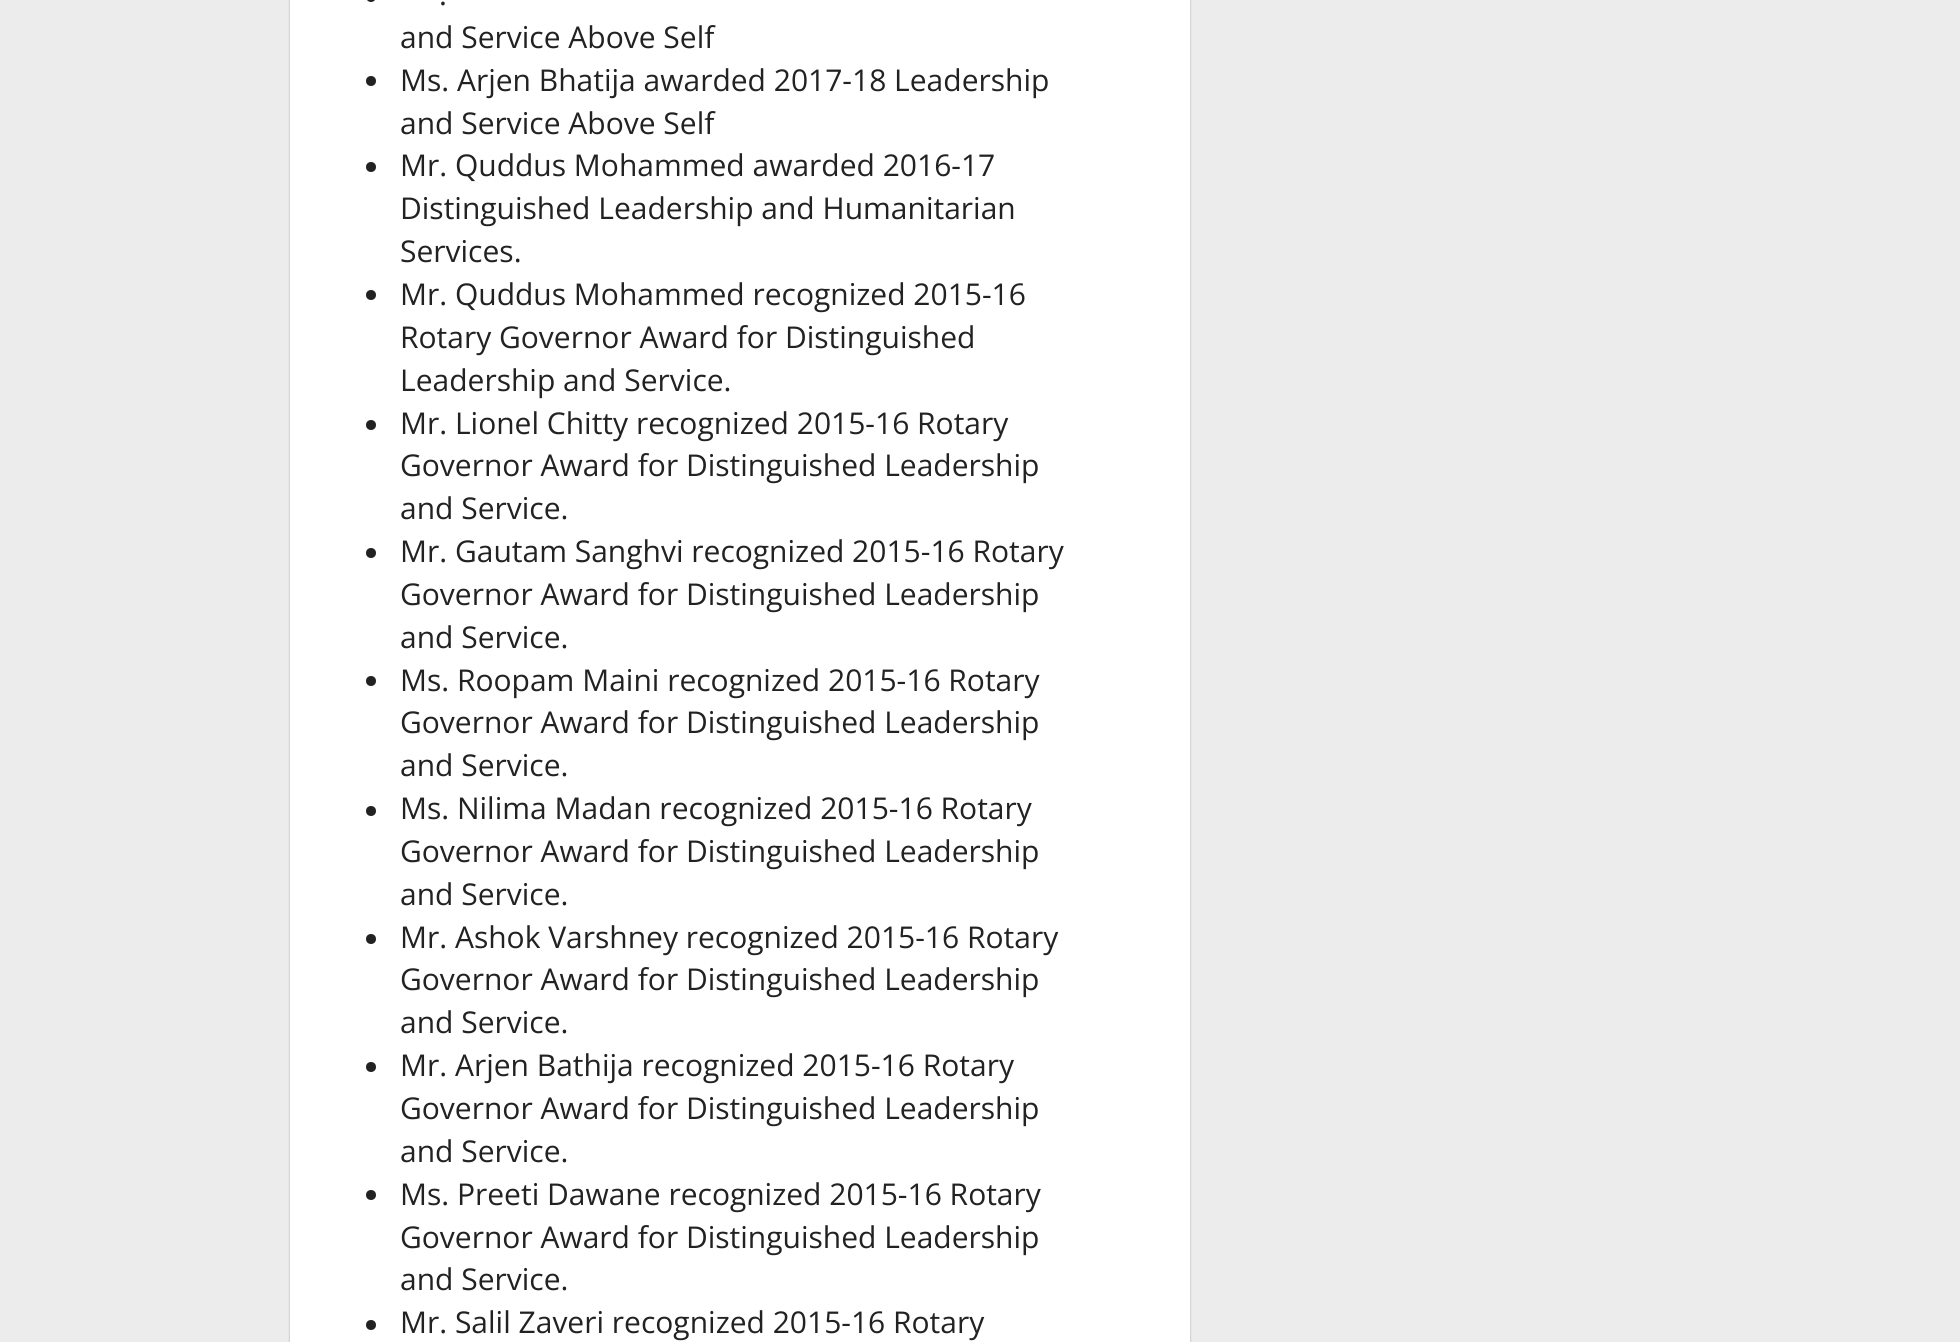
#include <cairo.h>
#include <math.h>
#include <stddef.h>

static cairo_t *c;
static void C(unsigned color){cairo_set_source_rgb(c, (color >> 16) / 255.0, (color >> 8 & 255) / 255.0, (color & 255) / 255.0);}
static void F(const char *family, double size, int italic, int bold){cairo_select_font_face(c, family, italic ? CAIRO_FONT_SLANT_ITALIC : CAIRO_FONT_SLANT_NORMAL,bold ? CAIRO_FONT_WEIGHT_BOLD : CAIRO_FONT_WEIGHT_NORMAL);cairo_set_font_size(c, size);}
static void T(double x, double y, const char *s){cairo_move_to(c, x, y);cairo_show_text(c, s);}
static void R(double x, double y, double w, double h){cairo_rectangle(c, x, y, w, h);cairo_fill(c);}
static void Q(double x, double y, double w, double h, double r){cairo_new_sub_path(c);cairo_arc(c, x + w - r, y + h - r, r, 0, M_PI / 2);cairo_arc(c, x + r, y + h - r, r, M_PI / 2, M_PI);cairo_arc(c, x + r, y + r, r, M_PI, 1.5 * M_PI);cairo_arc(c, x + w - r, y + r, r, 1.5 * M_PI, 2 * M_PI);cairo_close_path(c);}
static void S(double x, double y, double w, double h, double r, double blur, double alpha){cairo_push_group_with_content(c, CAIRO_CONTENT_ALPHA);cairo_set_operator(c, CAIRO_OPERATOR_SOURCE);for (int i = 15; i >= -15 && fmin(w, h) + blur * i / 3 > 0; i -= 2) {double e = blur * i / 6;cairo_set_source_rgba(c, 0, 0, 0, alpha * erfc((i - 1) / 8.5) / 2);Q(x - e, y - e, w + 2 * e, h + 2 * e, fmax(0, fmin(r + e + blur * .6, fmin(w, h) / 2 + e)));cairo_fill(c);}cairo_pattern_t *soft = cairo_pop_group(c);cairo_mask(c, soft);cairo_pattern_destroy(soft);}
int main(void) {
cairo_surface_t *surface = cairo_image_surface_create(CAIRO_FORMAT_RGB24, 1960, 1342);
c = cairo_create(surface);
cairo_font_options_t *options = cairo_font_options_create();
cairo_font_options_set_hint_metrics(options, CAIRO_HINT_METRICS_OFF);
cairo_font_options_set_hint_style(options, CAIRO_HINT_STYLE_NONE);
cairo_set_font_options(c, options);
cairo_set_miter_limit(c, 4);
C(0xececec);
cairo_paint(c);
C(0x000000);
S(290,-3,900,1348,0,1,.15);
C(0xffffff);
R(290,0,900,1342);
cairo_save(c);
cairo_set_fill_rule(c,CAIRO_FILL_RULE_EVEN_ODD);
cairo_new_path(c);
cairo_move_to(c,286,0);
cairo_line_to(c,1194,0);
cairo_line_to(c,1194,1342);
cairo_line_to(c,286,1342);
cairo_close_path(c);
cairo_move_to(c,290,-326);
cairo_line_to(c,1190,-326);
cairo_line_to(c,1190,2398);
cairo_line_to(c,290,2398);
cairo_close_path(c);
cairo_clip(c);
C(0x000000);
S(290,-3,900,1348,0,1,.15);
cairo_restore(c);
C(0x222222);
Q(366,-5,10,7,5);
cairo_fill(c);
F("Open Sans",30,0,0);
T(439,5,".");
T(400,48,"and Service Above Self");
cairo_new_path(c);
cairo_arc(c,371,81,5,0,2 * M_PI);
cairo_fill(c);
T(400,91,"Ms. Arjen Bhatija awarded 2017-18 Leadership");
T(400,134,"and Service Above Self");
cairo_new_path(c);
cairo_arc(c,371,167,5,0,2 * M_PI);
cairo_fill(c);
T(400,176,"Mr. Quddus Mohammed awarded 2016-17");
T(400,219,"Distinguished Leadership and Humanitarian");
T(400,262,"Services.");
cairo_new_path(c);
cairo_arc(c,371,295,5,0,2 * M_PI);
cairo_fill(c);
T(400,305,"Mr. Quddus Mohammed recognized 2015-16");
T(400,348,"Rotary Governor Award for Distinguished");
T(400,391,"Leadership and Service.");
cairo_new_path(c);
cairo_arc(c,371,425,5,0,2 * M_PI);
cairo_fill(c);
T(400,434,"Mr. Lionel Chitty recognized 2015-16 Rotary");
T(400,476,"Governor Award for Distinguished Leadership");
T(400,519,"and Service.");
cairo_new_path(c);
cairo_arc(c,371,553,5,0,2 * M_PI);
cairo_fill(c);
T(400,562,"Mr. Gautam Sanghvi recognized 2015-16 Rotary");
T(400,605,"Governor Award for Distinguished Leadership");
T(400,648,"and Service.");
cairo_new_path(c);
cairo_arc(c,371,681,5,0,2 * M_PI);
cairo_fill(c);
T(400,691,"Ms. Roopam Maini recognized 2015-16 Rotary");
T(400,733,"Governor Award for Distinguished Leadership");
T(400,776,"and Service.");
cairo_new_path(c);
cairo_arc(c,371,811,5,0,2 * M_PI);
cairo_fill(c);
T(400,819,"Ms. Nilima Madan recognized 2015-16 Rotary");
T(400,862,"Governor Award for Distinguished Leadership");
T(400,905,"and Service.");
cairo_new_path(c);
cairo_arc(c,371,939,5,0,2 * M_PI);
cairo_fill(c);
T(400,948,"Mr. Ashok Varshney recognized 2015-16 Rotary");
T(400,990,"Governor Award for Distinguished Leadership");
T(400,1033,"and Service.");
cairo_new_path(c);
cairo_arc(c,371,1067,5,0,2 * M_PI);
cairo_fill(c);
T(400,1076,"Mr. Arjen Bathija recognized 2015-16 Rotary");
T(400,1119,"Governor Award for Distinguished Leadership");
T(400,1162,"and Service.");
cairo_new_path(c);
cairo_arc(c,371,1195,5,0,2 * M_PI);
cairo_fill(c);
T(400,1205,"Ms. Preeti Dawane recognized 2015-16 Rotary");
T(400,1248,"Governor Award for Distinguished Leadership");
T(400,1290,"and Service.");
cairo_new_path(c);
cairo_arc(c,371,1325,5,0,2 * M_PI);
cairo_fill(c);
T(400,1333,"Mr. Salil Zaveri recognized 2015-16 Rotary");
cairo_surface_write_to_png(surface, "o.png");
cairo_font_options_destroy(options);
cairo_destroy(c);
cairo_surface_destroy(surface);
return 0;
}
